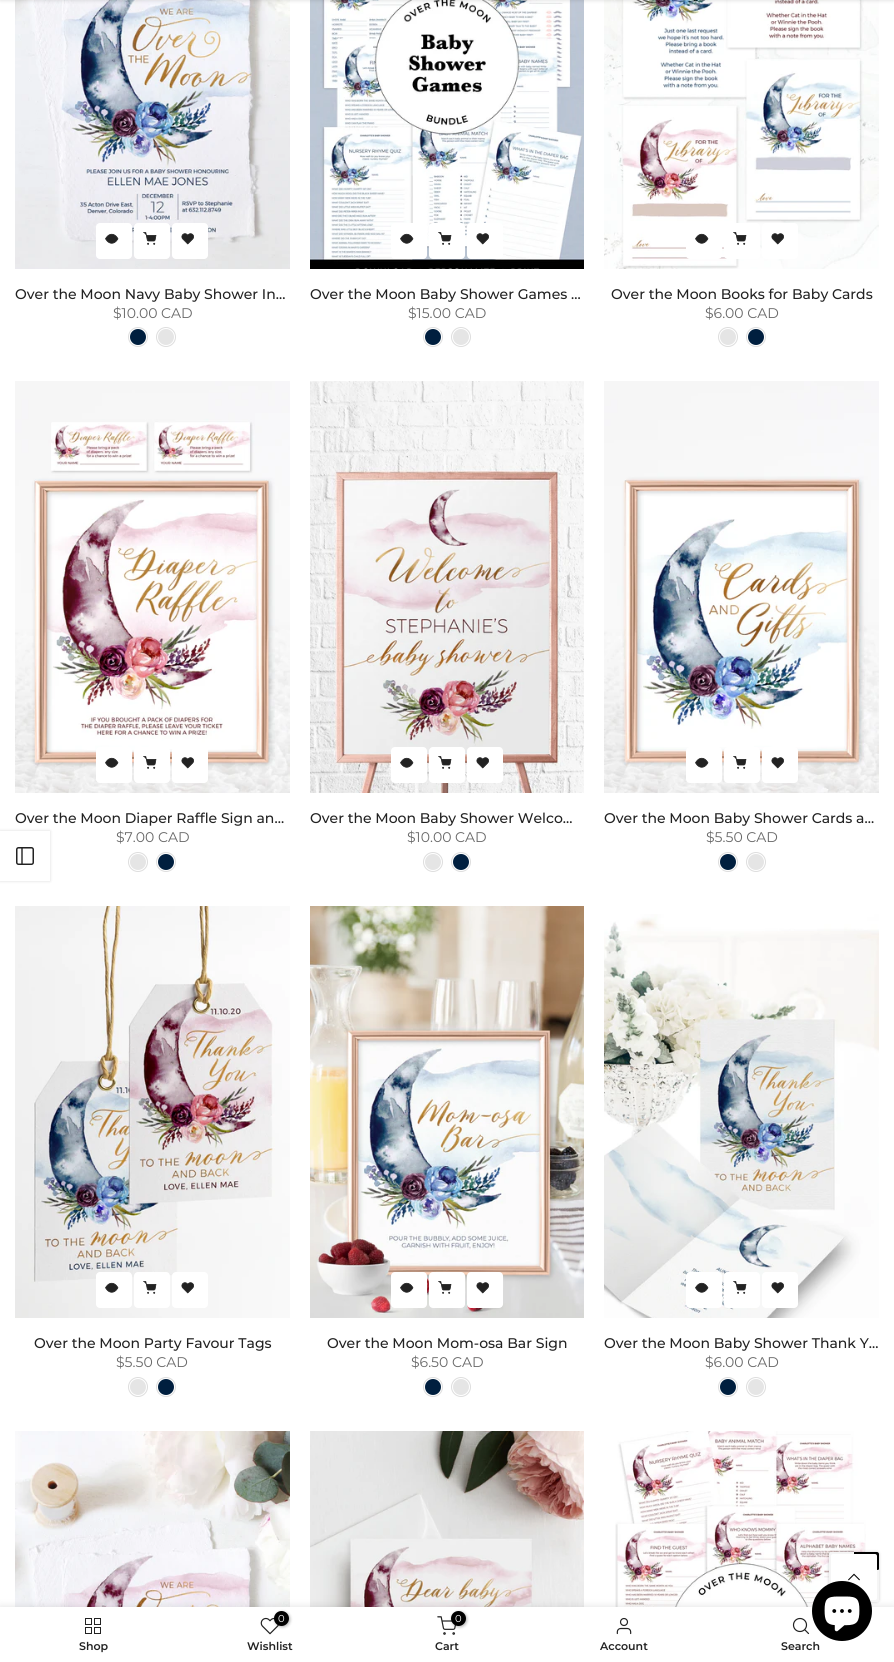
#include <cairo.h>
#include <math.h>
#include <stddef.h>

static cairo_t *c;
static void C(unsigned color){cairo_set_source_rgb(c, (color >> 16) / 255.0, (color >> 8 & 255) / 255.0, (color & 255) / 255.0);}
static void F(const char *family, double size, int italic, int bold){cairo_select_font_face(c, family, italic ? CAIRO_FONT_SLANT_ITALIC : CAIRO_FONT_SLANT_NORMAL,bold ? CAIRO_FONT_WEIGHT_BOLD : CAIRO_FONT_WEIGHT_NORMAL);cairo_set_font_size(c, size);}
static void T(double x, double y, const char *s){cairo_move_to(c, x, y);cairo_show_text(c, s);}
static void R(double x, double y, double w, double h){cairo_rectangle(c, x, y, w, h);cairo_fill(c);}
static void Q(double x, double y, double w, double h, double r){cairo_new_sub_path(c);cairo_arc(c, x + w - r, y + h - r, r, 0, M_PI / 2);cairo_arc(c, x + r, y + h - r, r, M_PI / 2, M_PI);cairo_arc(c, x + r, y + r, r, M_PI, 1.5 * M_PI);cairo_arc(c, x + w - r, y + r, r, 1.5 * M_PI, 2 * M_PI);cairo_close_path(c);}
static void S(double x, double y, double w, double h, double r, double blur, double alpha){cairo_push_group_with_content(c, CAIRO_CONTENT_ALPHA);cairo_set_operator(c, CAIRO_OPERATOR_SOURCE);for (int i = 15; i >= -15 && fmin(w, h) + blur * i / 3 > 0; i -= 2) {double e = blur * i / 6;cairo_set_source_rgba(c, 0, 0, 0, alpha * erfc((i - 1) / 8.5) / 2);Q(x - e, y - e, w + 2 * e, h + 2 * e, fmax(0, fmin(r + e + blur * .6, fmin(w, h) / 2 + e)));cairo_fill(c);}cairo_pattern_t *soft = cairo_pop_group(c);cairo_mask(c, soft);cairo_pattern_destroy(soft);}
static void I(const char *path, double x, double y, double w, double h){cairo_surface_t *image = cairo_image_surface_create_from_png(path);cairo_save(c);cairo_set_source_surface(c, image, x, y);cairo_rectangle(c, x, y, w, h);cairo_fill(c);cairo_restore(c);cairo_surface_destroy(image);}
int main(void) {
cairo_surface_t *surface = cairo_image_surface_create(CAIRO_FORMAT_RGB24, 894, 1662);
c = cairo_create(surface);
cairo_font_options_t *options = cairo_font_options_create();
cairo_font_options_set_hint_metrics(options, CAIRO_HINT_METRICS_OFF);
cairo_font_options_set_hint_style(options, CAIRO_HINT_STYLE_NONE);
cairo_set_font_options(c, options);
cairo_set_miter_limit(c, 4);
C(0xffffff);
cairo_paint(c);
I("1.png",15,0,275,269);
I("5.png",310,0,274,269);
I("6.png",604,0,275,269);
C(0x000000);
S(0,-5,894,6,0,1.5,.1);
C(0xffffff);
Q(96,223,36,36,4);
cairo_fill(c);
I("2.png",105,233,14,11);
Q(134,223,36,36,4);
cairo_fill(c);
I("3.png",143,232,14,13);
Q(172,223,36,36,4);
cairo_fill(c);
I("4.png",181,233,13,12);
F("Montserrat Medium",14,0,0);
C(0x222222);
T(15,299,"Over the Moon Navy Baby Shower In…");
F("Montserrat",14,0,0);
C(0x696969);
T(113,318,"$10.00 CAD");
cairo_new_path(c);
cairo_arc(c,138,337,9.5,0,2 * M_PI);
C(0xdddddd);
cairo_set_line_width(c,1);
cairo_stroke(c);
C(0x001f3f);
cairo_arc(c,138,337,8,0,2 * M_PI);
cairo_fill(c);
cairo_arc(c,166,337,9.5,0,2 * M_PI);
C(0xdddddd);
cairo_stroke(c);
C(0xe5e5e5);
cairo_arc(c,166,337,8,0,2 * M_PI);
cairo_fill(c);
C(0xffffff);
Q(391,223,36,36,4);
cairo_fill(c);
I("2.png",400,233,14,11);
Q(429,223,36,36,4);
cairo_fill(c);
I("3.png",438,232,14,13);
Q(467,223,36,36,4);
cairo_fill(c);
I("4.png",476,233,13,12);
F("Montserrat Medium",14,0,0);
C(0x222222);
T(310,299,"Over the Moon Baby Shower Games …");
F("Montserrat",14,0,0);
C(0x696969);
T(408,318,"$15.00 CAD");
cairo_new_path(c);
cairo_arc(c,433,337,9.5,0,2 * M_PI);
C(0xdddddd);
cairo_stroke(c);
C(0x001f3f);
cairo_arc(c,433,337,8,0,2 * M_PI);
cairo_fill(c);
cairo_arc(c,461,337,9.5,0,2 * M_PI);
C(0xdddddd);
cairo_stroke(c);
C(0xe5e5e5);
cairo_arc(c,461,337,8,0,2 * M_PI);
cairo_fill(c);
C(0xffffff);
Q(686,223,36,36,4);
cairo_fill(c);
I("2.png",695,233,14,11);
Q(724,223,36,36,4);
cairo_fill(c);
I("3.png",733,232,14,13);
Q(762,223,36,36,4);
cairo_fill(c);
I("4.png",771,233,13,12);
F("Montserrat Medium",14,0,0);
C(0x222222);
T(611,299,"Over the Moon Books for Baby Cards");
F("Montserrat",14,0,0);
C(0x696969);
T(705,318,"$6.00 CAD");
cairo_new_path(c);
cairo_arc(c,728,337,9.5,0,2 * M_PI);
C(0xdddddd);
cairo_stroke(c);
C(0xe5e5e5);
cairo_arc(c,728,337,8,0,2 * M_PI);
cairo_fill(c);
cairo_arc(c,756,337,9.5,0,2 * M_PI);
C(0xdddddd);
cairo_stroke(c);
C(0x001f3f);
cairo_arc(c,756,337,8,0,2 * M_PI);
cairo_fill(c);
I("7.png",15,381,275,412);
C(0xffffff);
Q(96,747,36,36,4);
cairo_fill(c);
I("2.png",105,757,14,11);
Q(134,747,36,36,4);
cairo_fill(c);
I("3.png",143,756,14,13);
Q(172,747,36,36,4);
cairo_fill(c);
I("4.png",181,757,13,12);
F("Montserrat Medium",14,0,0);
C(0x222222);
T(15,823,"Over the Moon Diaper Raffle Sign an…");
F("Montserrat",14,0,0);
C(0x696969);
T(116,842,"$7.00 CAD");
cairo_new_path(c);
cairo_arc(c,138,862,9.5,0,2 * M_PI);
C(0xdddddd);
cairo_stroke(c);
C(0xe5e5e5);
cairo_arc(c,138,862,8,0,2 * M_PI);
cairo_fill(c);
cairo_arc(c,166,862,9.5,0,2 * M_PI);
C(0xdddddd);
cairo_stroke(c);
C(0x001f3f);
cairo_arc(c,166,862,8,0,2 * M_PI);
cairo_fill(c);
I("8.png",310,381,274,412);
C(0xffffff);
Q(391,747,36,36,4);
cairo_fill(c);
I("2.png",400,757,14,11);
Q(429,747,36,36,4);
cairo_fill(c);
I("3.png",438,756,14,13);
Q(467,747,36,36,4);
cairo_fill(c);
I("4.png",476,757,13,12);
F("Montserrat Medium",14,0,0);
C(0x222222);
T(310,823,"Over the Moon Baby Shower Welco…");
F("Montserrat",14,0,0);
C(0x696969);
T(407,842,"$10.00 CAD");
cairo_new_path(c);
cairo_arc(c,433,862,9.5,0,2 * M_PI);
C(0xdddddd);
cairo_stroke(c);
C(0xe5e5e5);
cairo_arc(c,433,862,8,0,2 * M_PI);
cairo_fill(c);
cairo_arc(c,461,862,9.5,0,2 * M_PI);
C(0xdddddd);
cairo_stroke(c);
C(0x001f3f);
cairo_arc(c,461,862,8,0,2 * M_PI);
cairo_fill(c);
I("9.png",604,381,275,412);
C(0xffffff);
Q(686,747,36,36,4);
cairo_fill(c);
I("2.png",695,757,14,11);
Q(724,747,36,36,4);
cairo_fill(c);
I("3.png",733,756,14,13);
Q(762,747,36,36,4);
cairo_fill(c);
I("4.png",771,757,13,12);
F("Montserrat Medium",14,0,0);
C(0x222222);
T(604,823,"Over the Moon Baby Shower Cards a…");
F("Montserrat",14,0,0);
C(0x696969);
T(706,842,"$5.50 CAD");
cairo_new_path(c);
cairo_arc(c,728,862,9.5,0,2 * M_PI);
C(0xdddddd);
cairo_stroke(c);
C(0x001f3f);
cairo_arc(c,728,862,8,0,2 * M_PI);
cairo_fill(c);
cairo_arc(c,756,862,9.5,0,2 * M_PI);
C(0xdddddd);
cairo_stroke(c);
C(0xe5e5e5);
cairo_arc(c,756,862,8,0,2 * M_PI);
cairo_fill(c);
I("10.png",15,906,275,412);
C(0xffffff);
Q(96,1272,36,36,4);
cairo_fill(c);
I("2.png",105,1282,14,11);
Q(134,1272,36,36,4);
cairo_fill(c);
I("3.png",143,1281,14,13);
Q(172,1272,36,36,4);
cairo_fill(c);
I("4.png",181,1282,13,12);
F("Montserrat Medium",14,0,0);
C(0x222222);
T(34,1348,"Over the Moon Party Favour Tags");
F("Montserrat",14,0,0);
C(0x696969);
T(116,1367,"$5.50 CAD");
cairo_new_path(c);
cairo_arc(c,138,1387,9.5,0,2 * M_PI);
C(0xdddddd);
cairo_stroke(c);
C(0xe5e5e5);
cairo_arc(c,138,1387,8,0,2 * M_PI);
cairo_fill(c);
cairo_arc(c,166,1387,9.5,0,2 * M_PI);
C(0xdddddd);
cairo_stroke(c);
C(0x001f3f);
cairo_arc(c,166,1387,8,0,2 * M_PI);
cairo_fill(c);
I("11.png",310,906,274,412);
C(0xffffff);
Q(391,1272,36,36,4);
cairo_fill(c);
I("2.png",400,1282,14,11);
Q(429,1272,36,36,4);
cairo_fill(c);
I("3.png",438,1281,14,13);
Q(467,1272,36,36,4);
cairo_fill(c);
I("4.png",476,1282,13,12);
F("Montserrat Medium",14,0,0);
C(0x222222);
T(327,1348,"Over the Moon Mom-osa Bar Sign");
F("Montserrat",14,0,0);
C(0x696969);
T(411,1367,"$6.50 CAD");
cairo_new_path(c);
cairo_arc(c,433,1387,9.5,0,2 * M_PI);
C(0xdddddd);
cairo_stroke(c);
C(0x001f3f);
cairo_arc(c,433,1387,8,0,2 * M_PI);
cairo_fill(c);
cairo_arc(c,461,1387,9.5,0,2 * M_PI);
C(0xdddddd);
cairo_stroke(c);
C(0xe5e5e5);
cairo_arc(c,461,1387,8,0,2 * M_PI);
cairo_fill(c);
I("12.png",604,914,275,404);
C(0xffffff);
Q(686,1272,36,36,4);
cairo_fill(c);
I("2.png",695,1282,14,11);
Q(724,1272,36,36,4);
cairo_fill(c);
I("3.png",733,1281,14,13);
Q(762,1272,36,36,4);
cairo_fill(c);
I("4.png",771,1282,13,12);
F("Montserrat Medium",14,0,0);
C(0x222222);
T(604,1348,"Over the Moon Baby Shower Thank Y…");
F("Montserrat",14,0,0);
C(0x696969);
T(705,1367,"$6.00 CAD");
cairo_new_path(c);
cairo_arc(c,728,1387,9.5,0,2 * M_PI);
C(0xdddddd);
cairo_stroke(c);
C(0x001f3f);
cairo_arc(c,728,1387,8,0,2 * M_PI);
cairo_fill(c);
cairo_arc(c,756,1387,9.5,0,2 * M_PI);
C(0xdddddd);
cairo_stroke(c);
C(0xe5e5e5);
cairo_arc(c,756,1387,8,0,2 * M_PI);
cairo_fill(c);
I("13.png",15,1431,275,176);
I("14.png",310,1431,274,176);
I("15.png",615,1431,251,176);
cairo_save(c);
cairo_set_fill_rule(c,CAIRO_FILL_RULE_EVEN_ODD);
cairo_new_path(c);
cairo_move_to(c,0,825);
cairo_line_to(c,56,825);
cairo_line_to(c,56,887);
cairo_line_to(c,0,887);
cairo_close_path(c);
cairo_move_to(c,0,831);
cairo_line_to(c,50,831);
cairo_line_to(c,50,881);
cairo_line_to(c,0,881);
cairo_close_path(c);
cairo_clip(c);
C(0x000000);
S(0,831,50,50,0,1.5,.15);
cairo_restore(c);
Q(16.75,847.75,16.5,16.5,1.75);
C(0x222222);
cairo_set_line_width(c,1.5);
cairo_stroke(c);
cairo_new_path(c);
cairo_move_to(c,22,848);
cairo_line_to(c,22,864);
cairo_set_line_width(c,1.4);
cairo_set_line_cap(c,CAIRO_LINE_CAP_ROUND);
cairo_set_line_join(c,CAIRO_LINE_JOIN_ROUND);
cairo_stroke(c);
C(0x000000);
S(0,1607,894,55,0,4.5,.12);
C(0xffffff);
R(0,1607,894,55);
C(0x000000);
S(829,1552,50,50,3,1.5,.2);
C(0xffffff);
Q(829,1552,50,50,3);
cairo_fill(c);
C(0x000000);
cairo_new_path(c);
cairo_move_to(c,854,1577);
cairo_line_to(c,879,1569.5);
cairo_line_to(c,879,1554);
cairo_curve_to(c,879,1553,878,1552,877,1552);
cairo_line_to(c,854,1552);
cairo_close_path(c);
cairo_fill(c);
C(0xf5f5f5);
cairo_new_path(c);
cairo_move_to(c,854,1577);
cairo_line_to(c,854,1552);
cairo_line_to(c,831,1552);
cairo_curve_to(c,830,1552,829,1553,829,1554);
cairo_line_to(c,829,1600);
cairo_curve_to(c,829,1601,830,1602,831,1602);
cairo_line_to(c,877,1602);
cairo_curve_to(c,878,1602,879,1601,879,1600);
cairo_line_to(c,879,1570);
cairo_close_path(c);
cairo_fill(c);
C(0xffffff);
Q(831,1554,46,46,2);
cairo_fill(c);
I("16.png",848,1573,12,8);
I("17.png",85,1618,16,16);
F("Montserrat SemiBold",11,0,0);
C(0x222222);
T(79,1650,"Shop");
I("18.png",260,1617,19,18);
C(0x000000);
S(275,1612,15,15,7.5,1.5,.3);
C(0x000000);
cairo_arc(c,281.5,1618.5,7.5,0,2 * M_PI);
cairo_fill(c);
F("Montserrat",10,0,0);
C(0xffffff);
T(278,1622,"0");
F("Montserrat SemiBold",11,0,0);
C(0x222222);
T(247,1650,"Wishlist");
I("19.png",437,1616,19,19);
C(0x000000);
S(452,1612,15,15,7.5,1.5,.3);
C(0x000000);
cairo_arc(c,458.5,1618.5,7.5,0,2 * M_PI);
cairo_fill(c);
F("Montserrat",10,0,0);
C(0xffffff);
T(455,1622,"0");
F("Montserrat SemiBold",11,0,0);
C(0x222222);
T(435,1650,"Cart");
I("20.png",616,1617,16,18);
T(600,1650,"Account");
cairo_new_path(c);
cairo_arc(c,800,1625,6.5,0,2 * M_PI);
cairo_set_line_width(c,1.2);
cairo_set_line_cap(c,CAIRO_LINE_CAP_BUTT);
cairo_set_line_join(c,CAIRO_LINE_JOIN_MITER);
cairo_stroke(c);
cairo_new_path(c);
cairo_move_to(c,808.5,1633.5);
cairo_line_to(c,805,1630);
cairo_set_line_cap(c,CAIRO_LINE_CAP_ROUND);
cairo_set_line_join(c,CAIRO_LINE_JOIN_ROUND);
cairo_stroke(c);
T(781,1650,"Search");
C(0x000000);
cairo_new_path(c);
cairo_arc(c,842,1611,30,0,2 * M_PI);
cairo_fill(c);
I("21.png",824,1596,36,36);
cairo_surface_write_to_png(surface, "o.png");
cairo_font_options_destroy(options);
cairo_destroy(c);
cairo_surface_destroy(surface);
return 0;
}
